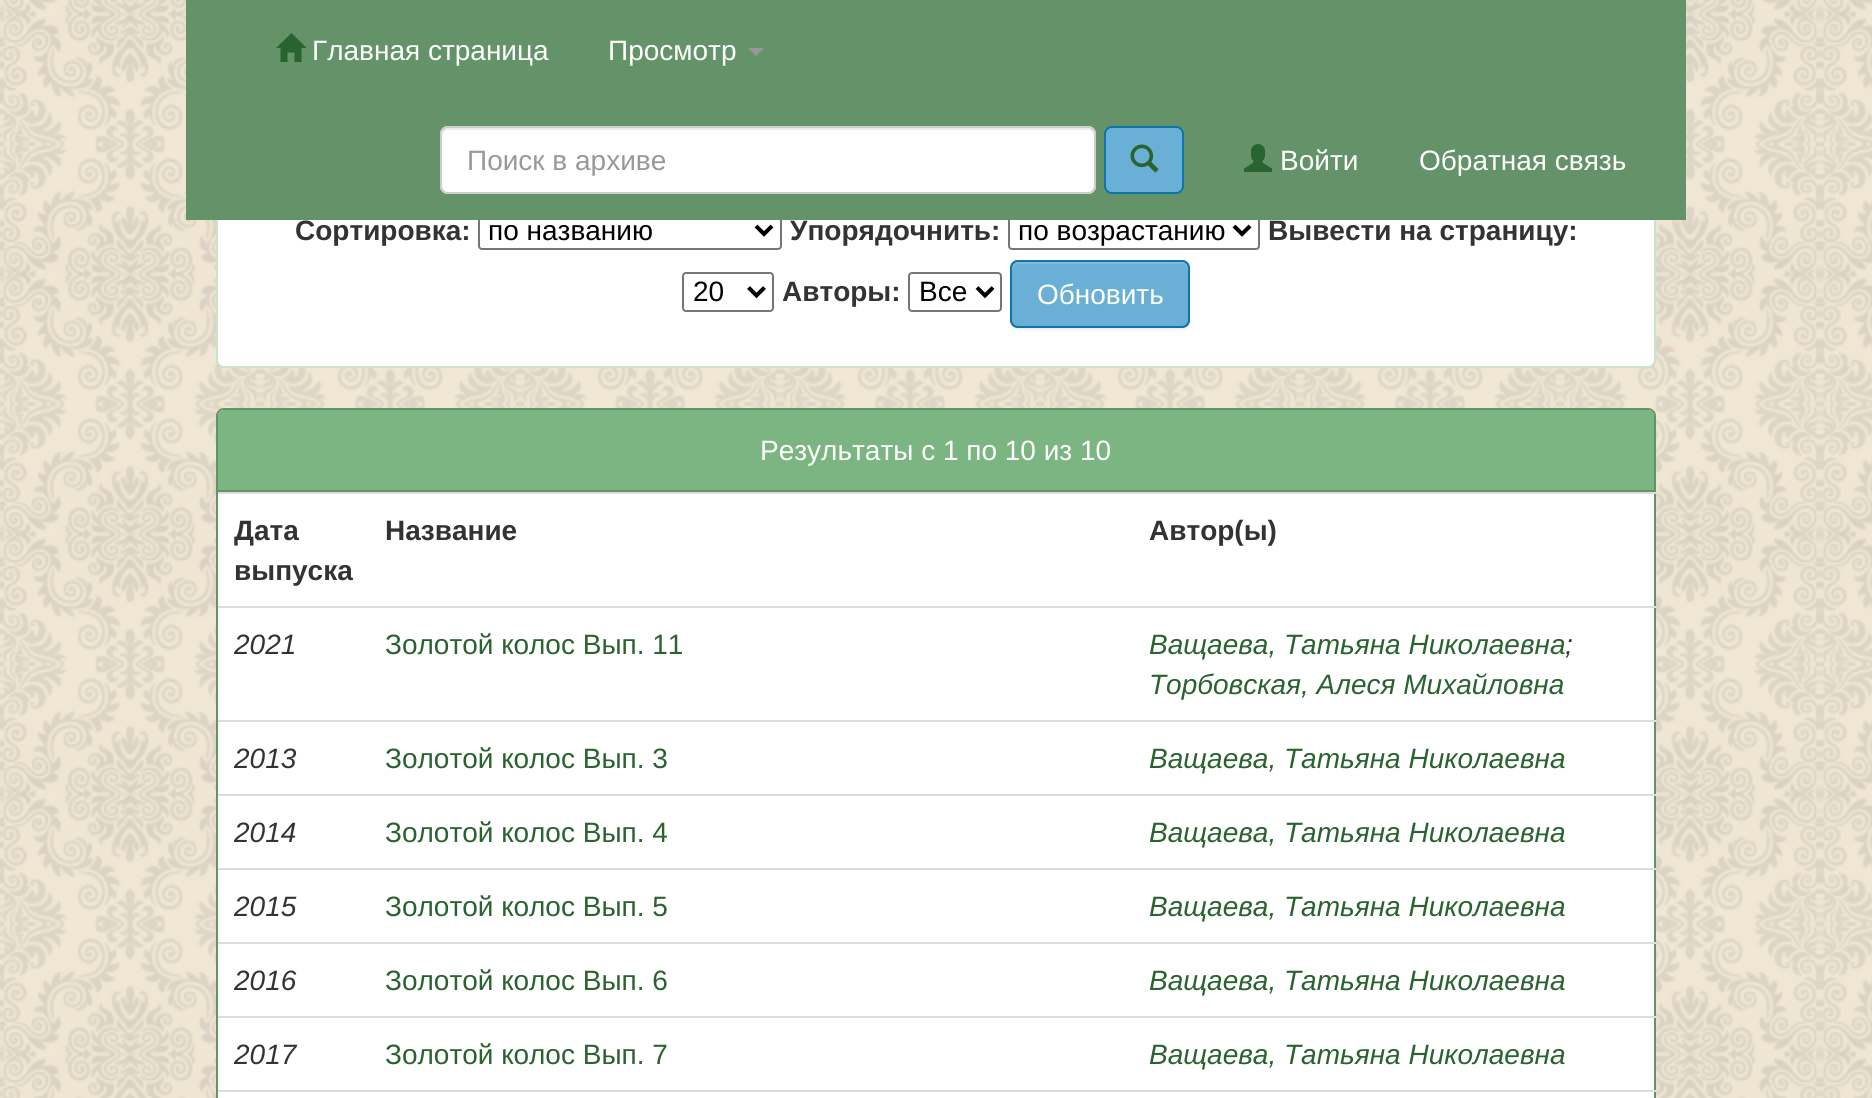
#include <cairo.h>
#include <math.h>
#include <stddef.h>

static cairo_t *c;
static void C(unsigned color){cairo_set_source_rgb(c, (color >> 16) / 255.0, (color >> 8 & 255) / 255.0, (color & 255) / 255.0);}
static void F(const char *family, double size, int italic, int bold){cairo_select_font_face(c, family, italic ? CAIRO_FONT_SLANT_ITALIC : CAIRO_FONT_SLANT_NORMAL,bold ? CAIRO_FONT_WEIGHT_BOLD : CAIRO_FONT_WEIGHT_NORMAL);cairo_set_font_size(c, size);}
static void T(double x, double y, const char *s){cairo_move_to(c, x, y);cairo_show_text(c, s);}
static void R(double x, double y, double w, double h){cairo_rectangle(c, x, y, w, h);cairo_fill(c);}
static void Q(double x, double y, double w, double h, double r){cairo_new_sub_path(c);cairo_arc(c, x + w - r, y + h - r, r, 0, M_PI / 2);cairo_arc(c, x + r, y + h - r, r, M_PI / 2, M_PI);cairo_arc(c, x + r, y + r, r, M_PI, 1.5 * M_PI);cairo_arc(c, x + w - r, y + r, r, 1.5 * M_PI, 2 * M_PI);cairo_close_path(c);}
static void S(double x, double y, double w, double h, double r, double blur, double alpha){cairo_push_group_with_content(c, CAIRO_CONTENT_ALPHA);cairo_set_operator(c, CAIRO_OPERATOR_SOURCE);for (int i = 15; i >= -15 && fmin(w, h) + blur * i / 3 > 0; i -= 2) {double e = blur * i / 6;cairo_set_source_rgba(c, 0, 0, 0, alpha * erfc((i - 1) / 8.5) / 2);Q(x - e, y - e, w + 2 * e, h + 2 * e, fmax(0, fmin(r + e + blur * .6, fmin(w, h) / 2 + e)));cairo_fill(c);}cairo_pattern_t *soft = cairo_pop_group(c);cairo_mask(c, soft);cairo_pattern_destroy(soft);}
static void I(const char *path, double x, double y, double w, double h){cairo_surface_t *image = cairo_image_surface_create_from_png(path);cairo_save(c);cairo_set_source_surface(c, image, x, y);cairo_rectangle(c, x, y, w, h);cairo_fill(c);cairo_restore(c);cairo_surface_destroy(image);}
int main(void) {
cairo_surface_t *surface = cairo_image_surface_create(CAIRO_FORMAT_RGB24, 1872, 1098);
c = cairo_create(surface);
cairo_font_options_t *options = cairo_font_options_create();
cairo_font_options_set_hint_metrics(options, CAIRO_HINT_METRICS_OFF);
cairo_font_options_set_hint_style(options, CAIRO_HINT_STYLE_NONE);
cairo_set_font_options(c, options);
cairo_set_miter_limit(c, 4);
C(0xffffff);
cairo_paint(c);
I("1.png",0,0,1872,1098);
C(0xffffff);
Q(217,171,1438,196,7);
cairo_fill_preserve(c);
C(0xc7e5ca);
cairo_stroke(c);
Q(479,211,302,38,3);
C(0x767676);
cairo_stroke(c);
Q(1009,211,250,38,3);
cairo_stroke(c);
C(0x649369);
R(186,0,1500,220);
C(0x29632f);
cairo_new_path(c);
cairo_move_to(c,306.5,48);
cairo_line_to(c,301.5,48);
cairo_line_to(c,301.5,62);
cairo_line_to(c,294.5,62);
cairo_line_to(c,294.5,52.5);
cairo_line_to(c,287.5,52.5);
cairo_line_to(c,287.5,62);
cairo_line_to(c,280.5,62);
cairo_line_to(c,280.5,48);
cairo_line_to(c,276,48);
cairo_line_to(c,291.5,33);
cairo_close_path(c);
cairo_fill(c);
F("Liberation Sans",28,0,0);
C(0xffffff);
T(312,60,"Главная страница");
T(608,60,"Просмотр");
C(0x999999);
cairo_new_path(c);
cairo_move_to(c,748,48);
cairo_line_to(c,764,48);
cairo_line_to(c,756,56);
cairo_close_path(c);
cairo_fill(c);
C(0xffffff);
Q(440,126,656,68,8);
cairo_fill(c);
C(0xececec);
cairo_new_path(c);
cairo_move_to(c,448,130);
cairo_line_to(c,1088,130);
cairo_curve_to(c,1091,130,1094,133,1094,136);
cairo_curve_to(c,1094,132,1093,128,1088,128);
cairo_line_to(c,448,128);
cairo_curve_to(c,443,128,442,132,442,136);
cairo_curve_to(c,442,133,445,130,448,130);
cairo_close_path(c);
cairo_fill(c);
Q(441,127,654,66,7);
C(0xcccccc);
cairo_stroke(c);
C(0x999999);
T(467,170,"Поиск в архиве");
C(0x6aafd5);
Q(1105,127,78,66,7);
cairo_fill_preserve(c);
C(0x0f74aa);
cairo_stroke(c);
I("2.png",1130,144,29,29);
I("3.png",1244,144,28,28);
C(0xffffff);
T(1280,170,"Войти");
T(1419,170,"Обратная связь");
F("Liberation Sans",28,0,1);
C(0x333333);
T(295,240,"Сортировка:");
cairo_new_path(c);
cairo_move_to(c,756,226);
cairo_line_to(c,764,234);
cairo_line_to(c,772,226);
C(0x000000);
cairo_set_line_width(c,4);
cairo_stroke(c);
F("Liberation Sans",28,0,0);
T(488,240,"по названию");
F("Liberation Sans",28,0,1);
C(0x333333);
T(790,240,"Упорядочнить:");
cairo_new_path(c);
cairo_move_to(c,1234,226);
cairo_line_to(c,1242,234);
cairo_line_to(c,1250,226);
C(0x000000);
cairo_stroke(c);
F("Liberation Sans",28,0,0);
T(1018,240,"по возрастанию");
F("Liberation Sans",28,0,1);
C(0x333333);
T(1268,240,"Вывести на страницу:");
Q(683,273,90,38,3);
C(0x767676);
cairo_set_line_width(c,2);
cairo_stroke(c);
cairo_new_path(c);
cairo_move_to(c,748.5,287.5);
cairo_line_to(c,756.5,295.5);
cairo_line_to(c,764.5,287.5);
C(0x000000);
cairo_set_line_width(c,4);
cairo_stroke(c);
F("Liberation Sans",28,0,0);
T(693,301,"20");
F("Liberation Sans",28,0,1);
C(0x333333);
T(782,301,"Авторы:");
Q(909,273,92,38,3);
C(0x767676);
cairo_set_line_width(c,2);
cairo_stroke(c);
cairo_new_path(c);
cairo_move_to(c,977,287.5);
cairo_line_to(c,985,295.5);
cairo_line_to(c,993,287.5);
C(0x000000);
cairo_set_line_width(c,4);
cairo_stroke(c);
F("Liberation Sans",28,0,0);
T(919,301,"Все");
C(0x000000);
S(1010,262,180,68,8,1,.07);
C(0x6aafd5);
Q(1010,260,180,68,8);
cairo_fill(c);
C(0x80bbdb);
cairo_new_path(c);
cairo_move_to(c,1018,264);
cairo_line_to(c,1182,264);
cairo_curve_to(c,1185,264,1188,267,1188,270);
cairo_line_to(c,1188,268);
cairo_curve_to(c,1188,265,1185,262,1182,262);
cairo_line_to(c,1018,262);
cairo_curve_to(c,1015,262,1012,265,1012,268);
cairo_line_to(c,1012,270);
cairo_curve_to(c,1012,267,1015,264,1018,264);
cairo_close_path(c);
cairo_fill(c);
Q(1011,261,178,66,7);
C(0x0f74aa);
cairo_set_line_width(c,2);
cairo_stroke(c);
C(0xffffff);
T(1037,304,"Обновить");
Q(217,409,1438,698,7);
cairo_fill_preserve(c);
C(0x649369);
cairo_stroke(c);
C(0x7bb581);
cairo_new_path(c);
cairo_move_to(c,224,410);
cairo_line_to(c,1648,410);
cairo_curve_to(c,1651.5,410,1654,412.5,1654,416);
cairo_line_to(c,1654,492);
cairo_line_to(c,218,492);
cairo_line_to(c,218,416);
cairo_curve_to(c,218,412.5,220.5,410,224,410);
cairo_close_path(c);
cairo_fill(c);
C(0x649369);
R(218,490,1436,2);
C(0xffffff);
T(760,460,"Результаты с 1 по 10 из 10");
F("Liberation Sans",28,0,1);
C(0x333333);
T(234,540,"Дата");
T(234,580,"выпуска");
T(385,540,"Название");
C(0xdddddd);
R(218,492,1438,2);
C(0x333333);
T(1149,540,"Автор(ы)");
F("Liberation Sans",28,1,0);
T(234,654,"2021");
F("Liberation Sans",28,0,0);
C(0x29632f);
T(385,654,"Золотой колос Вып. 11");
C(0xdddddd);
R(218,606,1438,2);
F("Liberation Sans",28,1,0);
C(0x29632f);
T(1149,654,"Ващаева, Татьяна Николаевна");
C(0x333333);
T(1565,654,";");
C(0x29632f);
T(1149,694,"Торбовская, Алеся Михайловна");
C(0x333333);
T(234,768,"2013");
F("Liberation Sans",28,0,0);
C(0x29632f);
T(385,768,"Золотой колос Вып. 3");
C(0xdddddd);
R(218,720,1438,2);
F("Liberation Sans",28,1,0);
C(0x29632f);
T(1149,768,"Ващаева, Татьяна Николаевна");
C(0x333333);
T(234,842,"2014");
F("Liberation Sans",28,0,0);
C(0x29632f);
T(385,842,"Золотой колос Вып. 4");
C(0xdddddd);
R(218,794,1438,2);
F("Liberation Sans",28,1,0);
C(0x29632f);
T(1149,842,"Ващаева, Татьяна Николаевна");
C(0x333333);
T(234,916,"2015");
F("Liberation Sans",28,0,0);
C(0x29632f);
T(385,916,"Золотой колос Вып. 5");
C(0xdddddd);
R(218,868,1438,2);
F("Liberation Sans",28,1,0);
C(0x29632f);
T(1149,916,"Ващаева, Татьяна Николаевна");
C(0x333333);
T(234,990,"2016");
F("Liberation Sans",28,0,0);
C(0x29632f);
T(385,990,"Золотой колос Вып. 6");
C(0xdddddd);
R(218,942,1438,2);
F("Liberation Sans",28,1,0);
C(0x29632f);
T(1149,990,"Ващаева, Татьяна Николаевна");
C(0x333333);
T(234,1064,"2017");
F("Liberation Sans",28,0,0);
C(0x29632f);
T(385,1064,"Золотой колос Вып. 7");
C(0xdddddd);
R(218,1016,1438,2);
F("Liberation Sans",28,1,0);
C(0x29632f);
T(1149,1064,"Ващаева, Татьяна Николаевна");
C(0xdddddd);
R(218,1090,1438,2);
cairo_surface_write_to_png(surface, "o.png");
cairo_font_options_destroy(options);
cairo_destroy(c);
cairo_surface_destroy(surface);
return 0;
}
